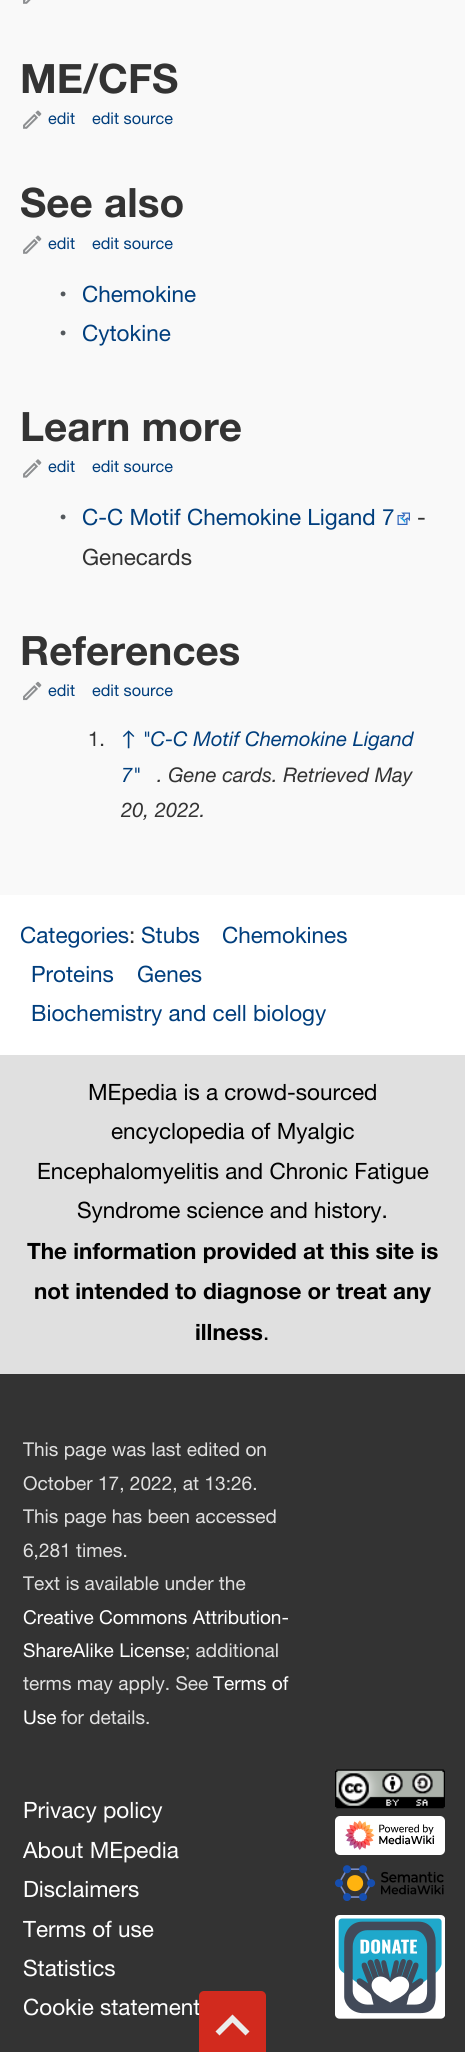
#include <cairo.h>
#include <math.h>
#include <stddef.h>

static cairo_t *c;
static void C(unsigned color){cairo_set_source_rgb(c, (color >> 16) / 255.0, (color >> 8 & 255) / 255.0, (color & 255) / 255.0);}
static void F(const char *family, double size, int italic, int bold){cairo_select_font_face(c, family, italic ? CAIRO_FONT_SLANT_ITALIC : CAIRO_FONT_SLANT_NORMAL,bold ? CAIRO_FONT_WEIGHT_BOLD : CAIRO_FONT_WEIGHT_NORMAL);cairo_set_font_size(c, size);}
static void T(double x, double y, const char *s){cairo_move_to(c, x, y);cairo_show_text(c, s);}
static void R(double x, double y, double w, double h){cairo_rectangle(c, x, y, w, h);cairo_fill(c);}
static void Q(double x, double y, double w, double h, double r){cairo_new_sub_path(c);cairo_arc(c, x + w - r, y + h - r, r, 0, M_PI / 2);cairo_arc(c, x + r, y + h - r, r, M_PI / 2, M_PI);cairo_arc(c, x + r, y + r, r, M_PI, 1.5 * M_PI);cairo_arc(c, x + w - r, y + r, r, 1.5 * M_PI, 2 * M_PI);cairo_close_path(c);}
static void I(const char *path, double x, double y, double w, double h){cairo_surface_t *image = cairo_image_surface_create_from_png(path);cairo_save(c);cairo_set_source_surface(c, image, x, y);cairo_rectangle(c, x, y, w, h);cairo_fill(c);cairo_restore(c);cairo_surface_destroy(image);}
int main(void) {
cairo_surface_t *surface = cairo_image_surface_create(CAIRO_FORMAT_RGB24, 465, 2052);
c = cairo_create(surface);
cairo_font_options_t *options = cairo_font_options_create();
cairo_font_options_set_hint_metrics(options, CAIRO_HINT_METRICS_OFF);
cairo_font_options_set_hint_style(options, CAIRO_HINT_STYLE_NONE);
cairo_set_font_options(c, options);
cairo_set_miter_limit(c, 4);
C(0xffffff);
cairo_paint(c);
C(0xf9f9f9);
R(0,0,465,895);
I("1.png",23,0,8,4);
F("Helvetica Neue",40.5,0,1);
C(0x333333);
T(20,93,"ME/CFS");
I("2.png",23,110,19,19);
F("Helvetica Neue",16.25,0,0);
C(0x003e7d);
T(48,124,"edit");
T(92,124,"edit source");
F("Helvetica Neue",40.5,0,1);
C(0x333333);
T(20,217,"See also");
I("2.png",23,235,19,19);
F("Helvetica Neue",16.25,0,0);
C(0x003e7d);
T(48,249,"edit");
T(92,249,"edit source");
F("Helvetica Neue",22.5,0,0);
C(0x54595d);
T(59,302,"•");
C(0x003e7d);
T(82,302,"Chemokine");
C(0x54595d);
T(59,341,"•");
C(0x003e7d);
T(82,341,"Cytokine");
F("Helvetica Neue",40.5,0,1);
C(0x333333);
T(20,441,"Learn more");
I("3.png",23,459,19,19);
F("Helvetica Neue",16.25,0,0);
C(0x003e7d);
T(48,472,"edit");
T(92,472,"edit source");
F("Helvetica Neue",22.5,0,0);
C(0x54595d);
T(59,525,"•");
C(0x003e7d);
T(82,525,"C-C Motif Chemokine Ligand 7");
I("4.png",397,512,13,13);
C(0x333333);
T(417,525,"-");
T(82,565,"Genecards");
F("Helvetica Neue",40.5,0,1);
T(20,665,"References");
I("5.png",23,681,19,20);
F("Helvetica Neue",16.25,0,0);
C(0x003e7d);
T(48,696,"edit");
T(92,696,"edit source");
F("Helvetica Neue",20.25,0,0);
C(0x333333);
T(88,746,"1.");
F("Lato",20.25,0,0);
C(0x003e7d);
T(121,746,"↑");
F("Helvetica Neue",20.25,1,0);
T(142,746,"\"C-C Motif Chemokine Ligand");
T(121,782,"7\"");
C(0x333333);
T(157,782,". Gene cards. Retrieved May");
T(121,817,"20, 2022.");
F("Helvetica Neue",22.5,0,0);
C(0x003e7d);
T(20,943,"Categories");
T(141,943,"Stubs");
T(222,943,"Chemokines");
T(31,982,"Proteins");
T(137,982,"Genes");
T(31,1021,"Biochemistry and cell biology");
C(0x333333);
T(129,943,":");
R(0,1374,465,678);
C(0xe0e0e0);
R(0,1055,465,319);
C(0x000000);
T(88,1100,"MEpedia is a crowd-sourced");
T(111,1139,"encyclopedia of Myalgic");
T(37,1179,"Encephalomyelitis and Chronic Fatigue");
T(77,1218,"Syndrome science and history.");
F("Helvetica Neue",22.5,0,1);
T(27,1259,"The information provided at this site is");
T(34,1299,"not intended to diagnose or treat any");
T(195,1340,"illness");
F("Helvetica Neue",22.5,0,0);
T(263,1340,".");
F("Helvetica Neue",19.1,0,0);
C(0xe0e0e0);
T(23,1456,"This page was last edited on");
T(23,1490,"October 17, 2022, at 13:26.");
T(23,1523,"This page has been accessed");
T(23,1557,"6,281 times.");
T(23,1590,"Text is available under the");
C(0xffffff);
T(23,1624,"Creative Commons Attribution-");
T(23,1657,"ShareAlike License");
C(0xe0e0e0);
T(185,1657,"; additional");
T(23,1690,"terms may apply. See");
C(0xffffff);
T(213,1690,"Terms of");
T(23,1724,"Use");
C(0xe0e0e0);
T(61,1724,"for details.");
F("Helvetica Neue",22.5,0,0);
C(0xffffff);
T(23,1818,"Privacy policy");
T(23,1858,"About MEpedia");
T(23,1897,"Disclaimers");
T(23,1937,"Terms of use");
T(23,1976,"Statistics");
T(23,2015,"Cookie statement");
I("6.png",335,1769,110,40);
Q(335,1816,110,39,5);
cairo_fill(c);
I("7.png",345,1820,90,30);
I("8.png",335,1865,109,36);
I("9.png",335,1915,110,104);
cairo_set_source_rgba(c,0.89,0.161,0.11,0.9);
Q(199,1991,67,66,5);
cairo_fill(c);
C(0xebebeb);
cairo_new_path(c);
cairo_move_to(c,232.5,2014.5);
cairo_line_to(c,215.5,2031.5);
cairo_line_to(c,219.5,2035.5);
cairo_line_to(c,232.5,2022.5);
cairo_line_to(c,245.5,2035.5);
cairo_line_to(c,249.5,2031.5);
cairo_close_path(c);
cairo_fill(c);
cairo_surface_write_to_png(surface, "o.png");
cairo_font_options_destroy(options);
cairo_destroy(c);
cairo_surface_destroy(surface);
return 0;
}
